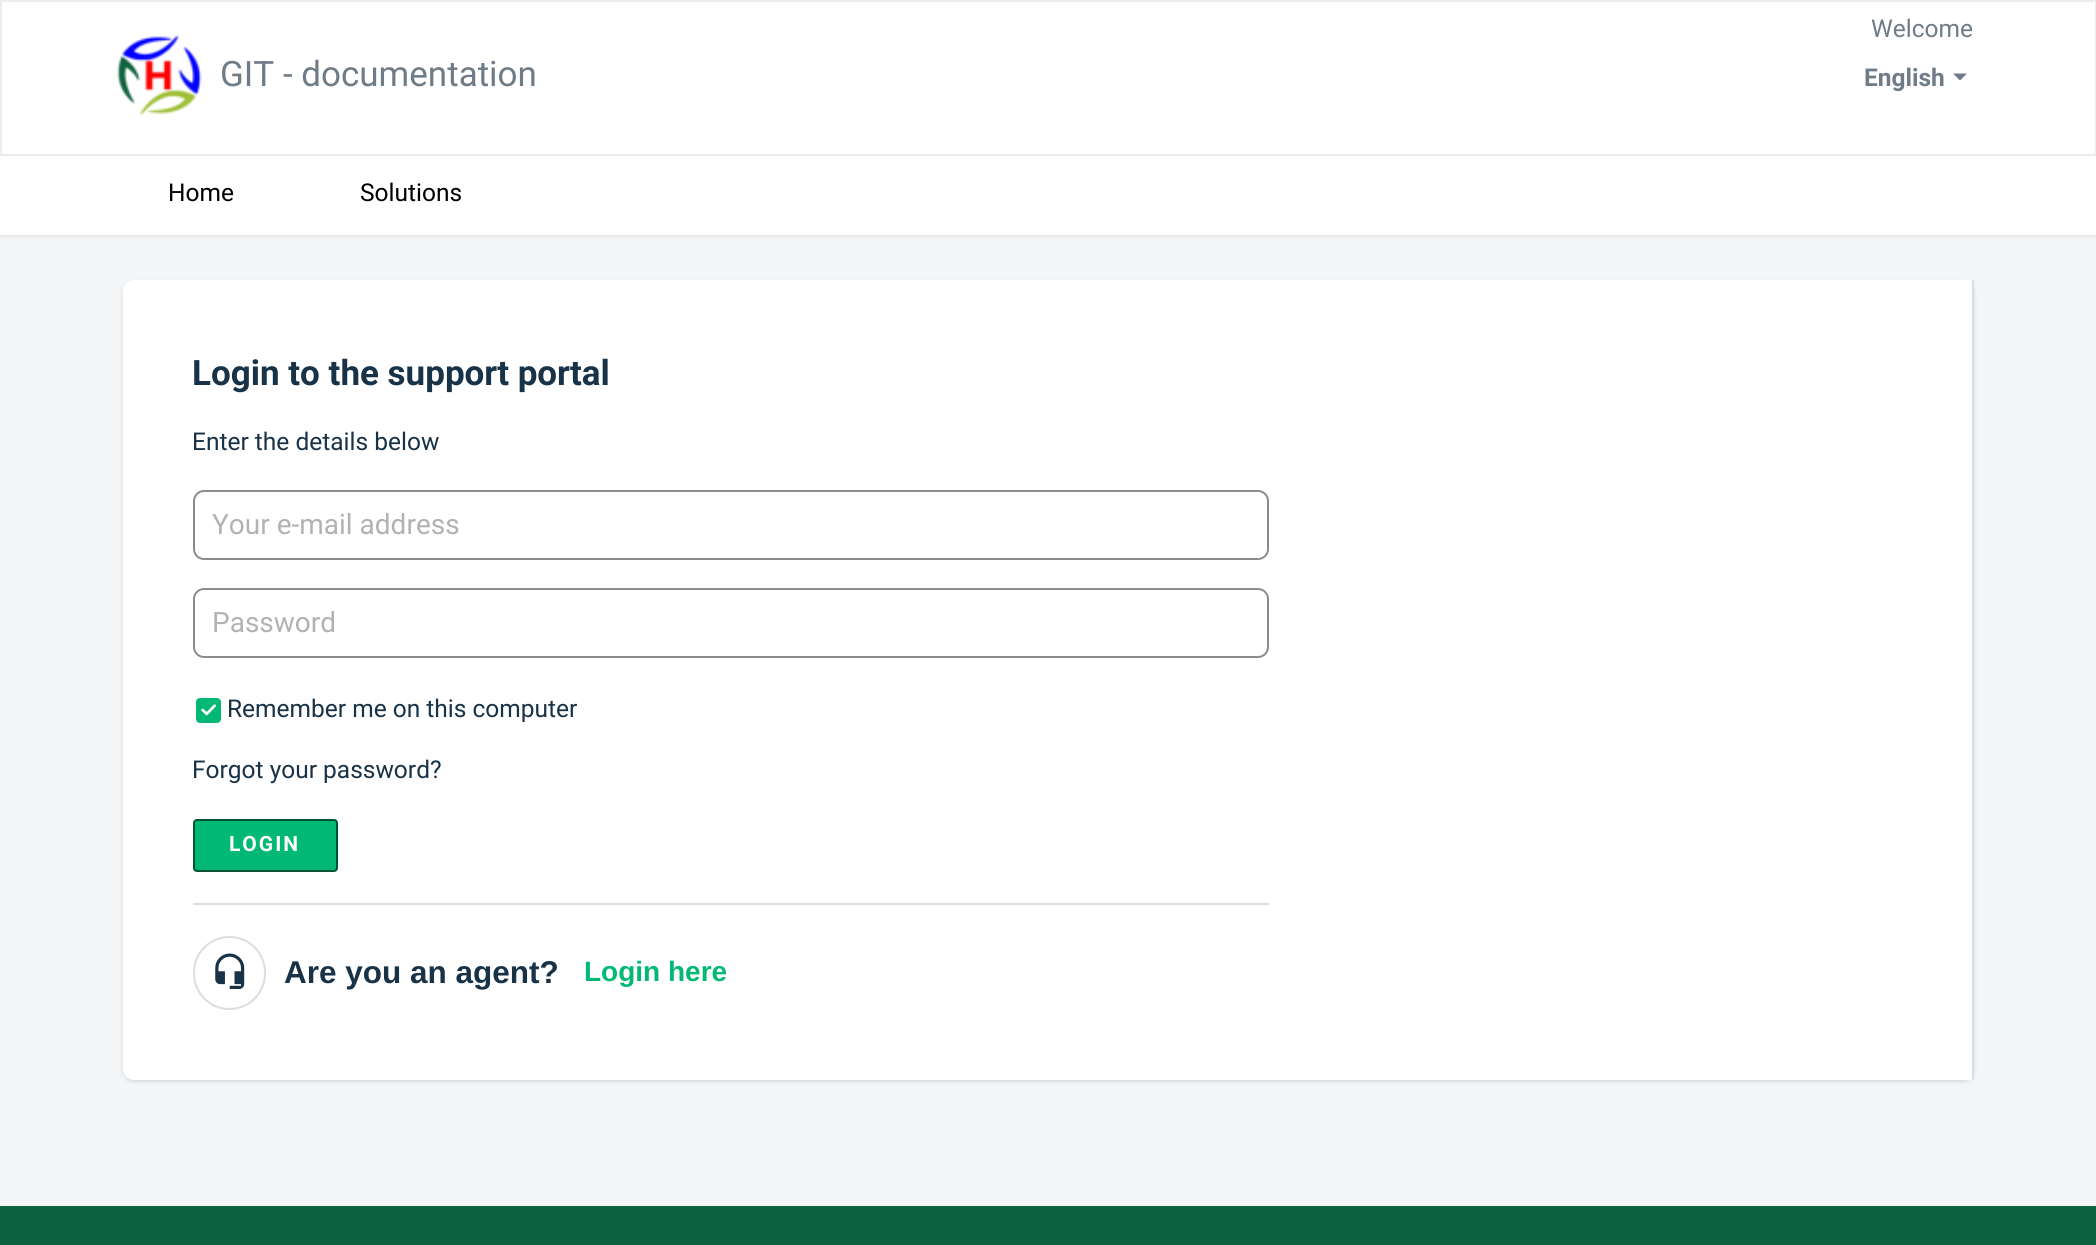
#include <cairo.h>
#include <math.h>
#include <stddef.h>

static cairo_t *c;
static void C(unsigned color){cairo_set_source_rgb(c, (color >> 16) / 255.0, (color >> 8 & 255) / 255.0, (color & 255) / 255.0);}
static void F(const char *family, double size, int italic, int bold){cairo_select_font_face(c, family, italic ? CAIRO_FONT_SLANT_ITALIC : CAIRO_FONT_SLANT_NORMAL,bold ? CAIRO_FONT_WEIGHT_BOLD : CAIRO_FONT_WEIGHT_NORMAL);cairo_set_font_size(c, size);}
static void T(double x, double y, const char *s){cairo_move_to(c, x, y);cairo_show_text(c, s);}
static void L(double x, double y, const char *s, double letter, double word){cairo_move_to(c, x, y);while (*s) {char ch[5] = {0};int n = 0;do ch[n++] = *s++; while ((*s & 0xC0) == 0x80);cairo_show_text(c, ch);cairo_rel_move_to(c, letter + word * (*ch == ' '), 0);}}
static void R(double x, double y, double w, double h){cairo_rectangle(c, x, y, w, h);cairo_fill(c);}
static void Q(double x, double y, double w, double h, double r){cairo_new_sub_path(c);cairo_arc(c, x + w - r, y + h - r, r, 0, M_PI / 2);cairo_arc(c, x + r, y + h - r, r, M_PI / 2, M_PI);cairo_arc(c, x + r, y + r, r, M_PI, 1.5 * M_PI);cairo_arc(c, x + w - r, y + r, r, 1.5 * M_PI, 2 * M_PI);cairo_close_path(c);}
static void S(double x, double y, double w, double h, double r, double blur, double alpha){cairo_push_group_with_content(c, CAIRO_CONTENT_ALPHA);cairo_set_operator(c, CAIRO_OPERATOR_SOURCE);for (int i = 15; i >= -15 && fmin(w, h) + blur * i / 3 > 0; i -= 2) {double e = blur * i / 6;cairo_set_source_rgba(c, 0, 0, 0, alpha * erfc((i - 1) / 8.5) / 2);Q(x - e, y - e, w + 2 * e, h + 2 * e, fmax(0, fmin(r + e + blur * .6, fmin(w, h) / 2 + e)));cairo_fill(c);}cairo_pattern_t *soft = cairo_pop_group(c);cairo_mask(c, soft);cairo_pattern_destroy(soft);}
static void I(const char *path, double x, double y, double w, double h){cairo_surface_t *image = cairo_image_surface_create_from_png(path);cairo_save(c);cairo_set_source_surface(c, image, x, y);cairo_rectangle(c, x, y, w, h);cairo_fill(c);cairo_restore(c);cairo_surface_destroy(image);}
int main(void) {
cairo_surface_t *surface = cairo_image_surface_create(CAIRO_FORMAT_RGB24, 2096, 1245);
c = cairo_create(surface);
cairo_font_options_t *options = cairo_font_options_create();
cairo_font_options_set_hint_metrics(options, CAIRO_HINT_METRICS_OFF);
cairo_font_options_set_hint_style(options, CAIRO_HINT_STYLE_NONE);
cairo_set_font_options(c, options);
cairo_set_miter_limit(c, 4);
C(0xf3f5f7);
cairo_paint(c);
C(0xffffff);
cairo_rectangle(c,1,1,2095,154);
cairo_fill_preserve(c);
C(0xebeef0);
cairo_stroke(c);
I("1.png",117,34,85,82);
F("Roboto",35,0,0);
C(0x6f7c87);
T(220,86,"GIT - documentation");
F("Roboto",24.5,0,0);
T(1871,37,"Welcome");
F("Roboto",24.5,0,1);
T(1864,86,"English");
cairo_new_path(c);
cairo_move_to(c,1953,73.5);
cairo_line_to(c,1967,73.5);
cairo_line_to(c,1960,80.5);
cairo_close_path(c);
cairo_fill(c);
C(0x3f3f44);
S(0,158,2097,78,0,2,.15);
C(0xffffff);
R(0,156,2096,79);
F("Roboto",24.5,0,0);
C(0x000000);
T(168,201,"Home");
T(360,201,"Solutions");
C(0x3f3f44);
S(123,282,1851,800,11,2,.15);
C(0xffffff);
cairo_new_path(c);
cairo_move_to(c,134,280);
cairo_line_to(c,1974,280);
cairo_line_to(c,1974,1080);
cairo_line_to(c,134,1080);
cairo_curve_to(c,128,1080,123,1075,123,1069);
cairo_line_to(c,123,291);
cairo_curve_to(c,123,285,128,280,134,280);
cairo_close_path(c);
cairo_fill(c);
C(0xdadfe3);
R(1972,280,2,800);
F("Roboto",35,0,1);
C(0x183247);
T(192,385,"Login to the support portal");
F("Roboto",24.5,0,0);
T(192,450,"Enter the details below");
Q(194,491,1074,68,10);
C(0x8c8c8c);
cairo_stroke(c);
F("Roboto",28,0,0);
C(0xb2b2b2);
T(212,534,"Your e-mail address");
Q(194,589,1074,68,10);
C(0x8c8c8c);
cairo_stroke(c);
C(0xb2b2b2);
T(212,632,"Password");
C(0x02b875);
Q(197,699,23,23,3);
cairo_fill_preserve(c);
cairo_stroke(c);
I("2.png",201,704,15,12);
F("Roboto",24.5,0,0);
C(0x183247);
T(227,717,"Remember me on this computer");
T(192,778,"Forgot your password?");
C(0x02b875);
Q(194,820,143,51,3);
cairo_fill_preserve(c);
C(0x015335);
cairo_stroke(c);
F("Roboto",21,0,1);
C(0xffffff);
L(229,851,"LOGIN",2,0);
C(0xdddddd);
R(193,903,1076,2);
Q(194,937,71,72,35.5);
cairo_stroke(c);
I("3.png",215,953,30,36);
F("Liberation Sans",31.5,0,1);
C(0x183247);
T(284,983,"Are you an agent?");
F("Liberation Sans",28,0,1);
C(0x02b875);
T(584,981,"Login here");
C(0x0a6241);
R(0,1206,2096,39);
cairo_surface_write_to_png(surface, "o.png");
cairo_font_options_destroy(options);
cairo_destroy(c);
cairo_surface_destroy(surface);
return 0;
}
